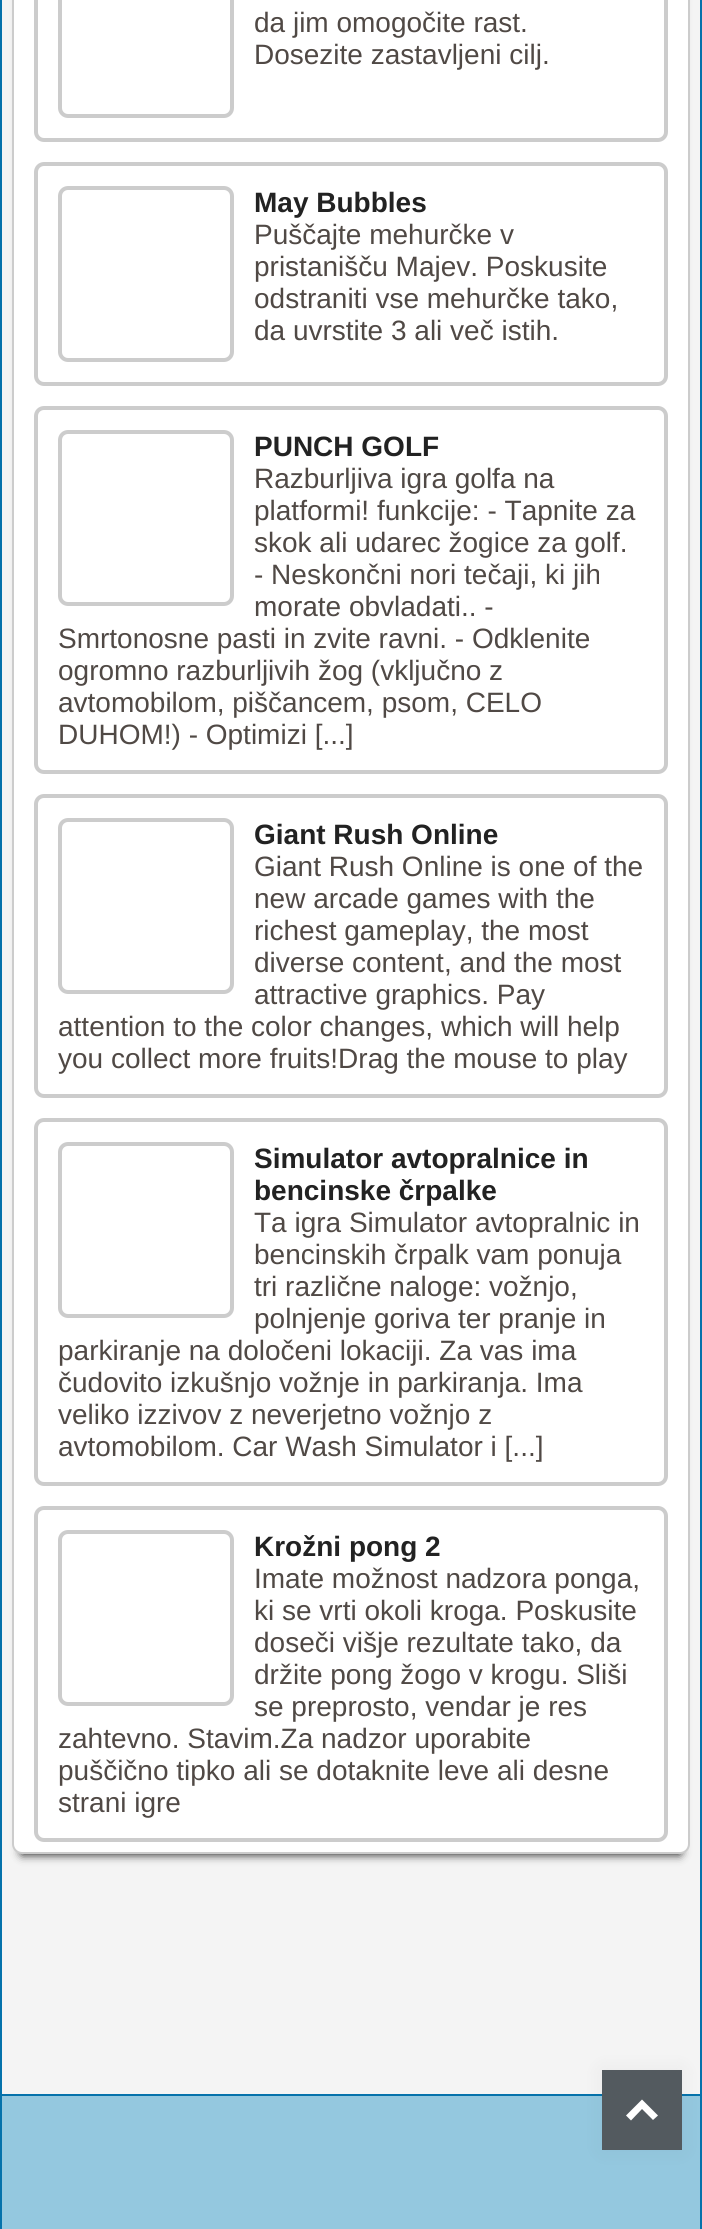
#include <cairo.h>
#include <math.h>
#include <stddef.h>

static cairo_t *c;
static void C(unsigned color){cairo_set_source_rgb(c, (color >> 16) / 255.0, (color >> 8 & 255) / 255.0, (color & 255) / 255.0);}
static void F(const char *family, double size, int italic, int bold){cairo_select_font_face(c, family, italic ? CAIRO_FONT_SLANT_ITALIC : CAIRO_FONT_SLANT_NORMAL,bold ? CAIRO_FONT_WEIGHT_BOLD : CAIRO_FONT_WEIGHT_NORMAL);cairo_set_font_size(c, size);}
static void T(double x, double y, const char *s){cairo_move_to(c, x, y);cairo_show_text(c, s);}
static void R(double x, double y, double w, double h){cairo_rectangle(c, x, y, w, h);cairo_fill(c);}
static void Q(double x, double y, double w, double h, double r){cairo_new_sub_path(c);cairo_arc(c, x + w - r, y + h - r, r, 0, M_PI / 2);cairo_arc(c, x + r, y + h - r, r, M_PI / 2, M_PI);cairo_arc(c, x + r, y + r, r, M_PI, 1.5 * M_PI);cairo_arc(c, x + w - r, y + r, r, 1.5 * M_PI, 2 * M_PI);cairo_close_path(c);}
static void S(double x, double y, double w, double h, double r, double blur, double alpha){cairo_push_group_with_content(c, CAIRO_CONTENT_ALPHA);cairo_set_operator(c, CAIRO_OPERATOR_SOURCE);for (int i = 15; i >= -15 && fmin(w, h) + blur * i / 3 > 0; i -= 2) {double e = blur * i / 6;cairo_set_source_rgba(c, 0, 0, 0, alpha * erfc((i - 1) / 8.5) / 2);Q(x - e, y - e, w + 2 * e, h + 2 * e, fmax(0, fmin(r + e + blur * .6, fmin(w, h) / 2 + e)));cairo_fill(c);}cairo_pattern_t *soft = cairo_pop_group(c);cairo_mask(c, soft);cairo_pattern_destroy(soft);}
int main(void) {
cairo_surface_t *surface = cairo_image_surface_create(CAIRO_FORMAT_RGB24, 702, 2229);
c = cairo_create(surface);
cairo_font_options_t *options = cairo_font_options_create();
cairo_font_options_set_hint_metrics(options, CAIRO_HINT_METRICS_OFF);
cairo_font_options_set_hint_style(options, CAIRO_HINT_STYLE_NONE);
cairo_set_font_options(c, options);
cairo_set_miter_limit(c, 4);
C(0xf4f4f4);
cairo_paint(c);
C(0x0572ab);
R(700,0,2,2229);
R(0,0,2,2229);
C(0x000000);
S(22,-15,658,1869,0,5,1);
C(0xffffff);
Q(13,-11,676,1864,9);
cairo_fill_preserve(c);
C(0xcccccc);
cairo_stroke(c);
Q(36,-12,630,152,8);
cairo_set_line_width(c,4);
cairo_stroke(c);
Q(60,-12,172,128,8);
cairo_stroke(c);
F("Liberation Sans",28,0,0);
C(0x504945);
T(254,32,"da jim omogočite rast.");
T(254,64,"Dosezite zastavljeni cilj.");
Q(36,164,630,220,8);
C(0xcccccc);
cairo_stroke(c);
Q(60,188,172,172,8);
cairo_stroke(c);
F("Liberation Sans",28,0,1);
C(0x222222);
T(254,212,"May Bubbles");
F("Liberation Sans",28,0,0);
C(0x504945);
T(254,244,"Puščajte mehurčke v");
T(254,276,"pristanišču Majev. Poskusite");
T(254,308,"odstraniti vse mehurčke tako,");
T(254,340,"da uvrstite 3 ali več istih.");
Q(36,408,630,364,8);
C(0xcccccc);
cairo_stroke(c);
Q(60,432,172,172,8);
cairo_stroke(c);
F("Liberation Sans",28,0,1);
C(0x222222);
T(254,456,"PUNCH GOLF");
F("Liberation Sans",28,0,0);
C(0x504945);
T(254,488,"Razburljiva igra golfa na");
T(254,520,"platformi! funkcije: - Tapnite za");
T(254,552,"skok ali udarec žogice za golf.");
T(254,584,"- Neskončni nori tečaji, ki jih");
T(254,616,"morate obvladati.. -");
T(58,648,"Smrtonosne pasti in zvite ravni. - Odklenite");
T(58,680,"ogromno razburljivih žog (vključno z");
T(58,712,"avtomobilom, piščancem, psom, CELO");
T(58,744,"DUHOM!) - Optimizi [...]");
Q(36,796,630,300,8);
C(0xcccccc);
cairo_stroke(c);
Q(60,820,172,172,8);
cairo_stroke(c);
F("Liberation Sans",28,0,1);
C(0x222222);
T(254,844,"Giant Rush Online");
F("Liberation Sans",28,0,0);
C(0x504945);
T(254,876,"Giant Rush Online is one of the");
T(254,908,"new arcade games with the");
T(254,940,"richest gameplay, the most");
T(254,972,"diverse content, and the most");
T(254,1004,"attractive graphics. Pay");
T(58,1036,"attention to the color changes, which will help");
T(58,1068,"you collect more fruits!Drag the mouse to play");
Q(36,1120,630,364,8);
C(0xcccccc);
cairo_stroke(c);
Q(60,1144,172,172,8);
cairo_stroke(c);
F("Liberation Sans",28,0,1);
C(0x222222);
T(254,1168,"Simulator avtopralnice in");
T(254,1200,"bencinske črpalke");
F("Liberation Sans",28,0,0);
C(0x504945);
T(254,1232,"Ta igra Simulator avtopralnic in");
T(254,1264,"bencinskih črpalk vam ponuja");
T(254,1296,"tri različne naloge: vožnjo,");
T(254,1328,"polnjenje goriva ter pranje in");
T(58,1360,"parkiranje na določeni lokaciji. Za vas ima");
T(58,1392,"čudovito izkušnjo vožnje in parkiranja. Ima");
T(58,1424,"veliko izzivov z neverjetno vožnjo z");
T(58,1456,"avtomobilom. Car Wash Simulator i [...]");
Q(36,1508,630,332,8);
C(0xcccccc);
cairo_stroke(c);
Q(60,1532,172,172,8);
cairo_stroke(c);
F("Liberation Sans",28,0,1);
C(0x222222);
T(254,1556,"Krožni pong 2");
F("Liberation Sans",28,0,0);
C(0x504945);
T(254,1588,"Imate možnost nadzora ponga,");
T(254,1620,"ki se vrti okoli kroga. Poskusite");
T(254,1652,"doseči višje rezultate tako, da");
T(254,1684,"držite pong žogo v krogu. Sliši");
T(254,1716,"se preprosto, vendar je res");
T(58,1748,"zahtevno. Stavim.Za nadzor uporabite");
T(58,1780,"puščično tipko ali se dotaknite leve ali desne");
T(58,1812,"strani igre");
C(0x94c8df);
R(2,2096,698,133);
C(0x0572ab);
R(2,2094,698,2);
C(0x000000);
S(602,2070,80,80,0,10,.05);
C(0x535a5f);
R(602,2070,80,80);
C(0xffffff);
cairo_new_path(c);
cairo_move_to(c,642,2099.5);
cairo_line_to(c,658,2115.5);
cairo_line_to(c,653,2120);
cairo_line_to(c,642,2109);
cairo_line_to(c,631,2120.5);
cairo_line_to(c,626,2115.5);
cairo_close_path(c);
cairo_fill(c);
cairo_surface_write_to_png(surface, "o.png");
cairo_font_options_destroy(options);
cairo_destroy(c);
cairo_surface_destroy(surface);
return 0;
}
